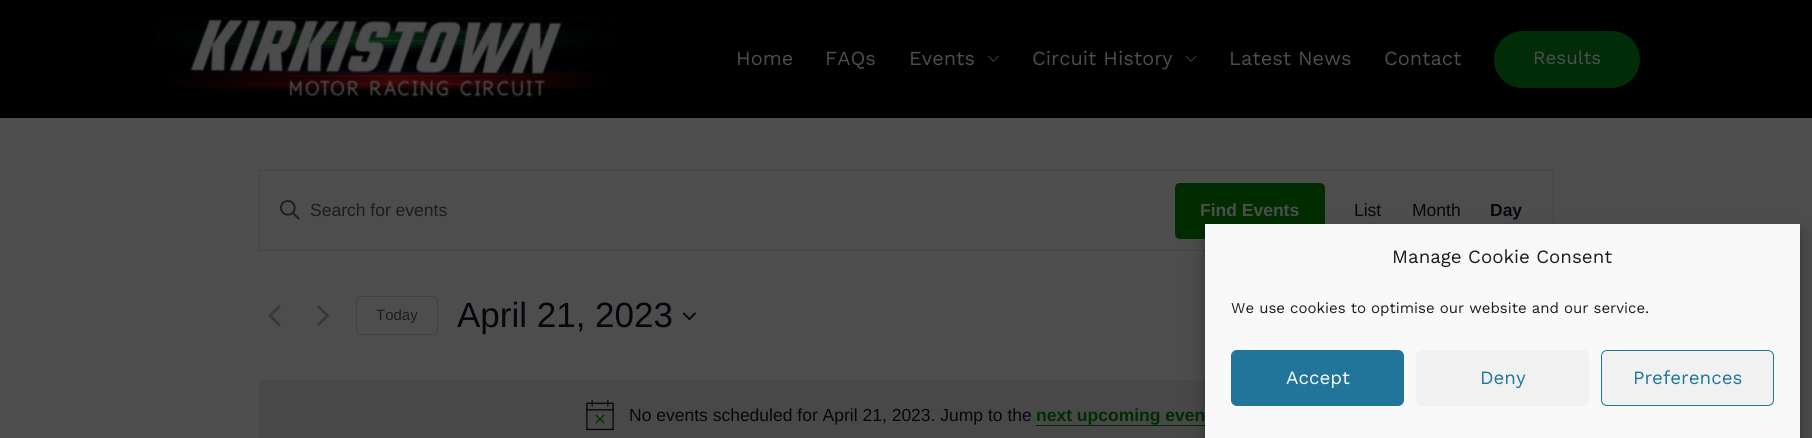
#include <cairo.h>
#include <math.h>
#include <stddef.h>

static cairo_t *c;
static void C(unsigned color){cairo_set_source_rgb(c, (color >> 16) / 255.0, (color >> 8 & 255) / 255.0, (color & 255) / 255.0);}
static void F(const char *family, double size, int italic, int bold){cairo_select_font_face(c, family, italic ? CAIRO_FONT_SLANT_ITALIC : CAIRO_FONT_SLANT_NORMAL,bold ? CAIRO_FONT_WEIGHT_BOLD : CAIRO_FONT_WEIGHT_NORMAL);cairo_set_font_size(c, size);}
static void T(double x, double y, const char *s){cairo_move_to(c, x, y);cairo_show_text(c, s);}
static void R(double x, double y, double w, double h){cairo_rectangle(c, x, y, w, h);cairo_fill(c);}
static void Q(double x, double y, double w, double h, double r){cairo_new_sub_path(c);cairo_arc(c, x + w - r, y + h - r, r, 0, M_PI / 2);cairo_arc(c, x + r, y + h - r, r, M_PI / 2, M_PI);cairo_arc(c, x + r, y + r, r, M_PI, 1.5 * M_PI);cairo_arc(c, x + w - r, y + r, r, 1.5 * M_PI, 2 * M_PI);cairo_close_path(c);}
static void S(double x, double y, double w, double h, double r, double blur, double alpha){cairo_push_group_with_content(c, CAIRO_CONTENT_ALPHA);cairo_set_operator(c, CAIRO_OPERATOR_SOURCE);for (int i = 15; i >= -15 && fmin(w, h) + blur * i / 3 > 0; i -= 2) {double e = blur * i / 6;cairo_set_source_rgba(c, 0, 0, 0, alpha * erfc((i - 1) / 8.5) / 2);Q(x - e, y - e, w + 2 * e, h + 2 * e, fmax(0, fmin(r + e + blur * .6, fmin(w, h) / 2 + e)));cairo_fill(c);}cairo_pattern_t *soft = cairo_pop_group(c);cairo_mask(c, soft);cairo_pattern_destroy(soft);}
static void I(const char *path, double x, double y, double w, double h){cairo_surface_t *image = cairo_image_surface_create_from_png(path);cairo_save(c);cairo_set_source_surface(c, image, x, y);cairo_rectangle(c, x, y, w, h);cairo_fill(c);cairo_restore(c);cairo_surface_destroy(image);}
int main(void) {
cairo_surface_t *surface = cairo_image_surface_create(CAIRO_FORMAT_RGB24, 1812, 438);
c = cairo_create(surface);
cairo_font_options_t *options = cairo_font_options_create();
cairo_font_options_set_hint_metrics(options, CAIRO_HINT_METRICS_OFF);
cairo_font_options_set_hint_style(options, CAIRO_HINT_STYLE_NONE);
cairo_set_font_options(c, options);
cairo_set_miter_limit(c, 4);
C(0x4d4d4d);
cairo_paint(c);
C(0x000000);
R(0,0,1812,118);
I("1.png",156,17,459,84);
F("Work Sans",20,0,0);
C(0x4d4d4d);
T(736,65,"Home");
T(825,65,"FAQs");
T(909,65,"Events");
I("2.png",988,55,11,7);
T(1032,65,"Circuit History");
I("3.png",1185,55,12,7);
T(1229,65,"Latest News");
T(1384,65,"Contact");
C(0x002c08);
Q(1496,33,142,53,26.5);
cairo_fill_preserve(c);
cairo_set_line_width(c,4);
cairo_stroke(c);
F("Work Sans",18.75,0,0);
C(0x4d4d4d);
T(1533,64,"Results");
cairo_rectangle(c,259.5,170.5,1294,80);
C(0x444444);
cairo_set_line_width(c,1);
cairo_stroke(c);
I("4.png",280,200,20,20);
F("Liberation Sans",17.5,0,0);
C(0x1c1c1c);
T(310,216,"Search for events");
C(0x002c00);
Q(1175,183,150,56,5);
cairo_fill(c);
F("Liberation Sans",17.5,0,1);
C(0x4d4d4d);
T(1200,216,"Find Events");
F("Liberation Sans",17.5,0,0);
C(0x06070c);
T(1354,216,"List");
T(1412,216,"Month");
F("Liberation Sans",17.5,0,1);
T(1490,216,"Day");
C(0x383838);
cairo_new_path(c);
cairo_move_to(c,281,324.5);
cairo_line_to(c,279,326.5);
cairo_line_to(c,268,315.5);
cairo_line_to(c,279,305);
cairo_line_to(c,281,307);
cairo_line_to(c,272,315.5);
cairo_close_path(c);
cairo_move_to(c,316.5,307);
cairo_line_to(c,318.5,305);
cairo_line_to(c,329.5,315.5);
cairo_line_to(c,318.5,326.5);
cairo_line_to(c,316.5,324.5);
cairo_line_to(c,325.5,315.5);
cairo_close_path(c);
cairo_fill(c);
Q(356.5,296.5,81,38,4.5);
C(0x404040);
cairo_stroke(c);
F("Liberation Sans",15,0,0);
C(0x1c1c1c);
T(376,320,"Today");
F("Liberation Sans",35,0,0);
C(0x06070c);
T(457,327,"April 21, 2023");
I("5.png",683,312,13,9);
C(0x484848);
Q(259,380,1295,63,5);
cairo_fill(c);
I("6.png",586,400,28,31);
F("Liberation Sans",17.5,0,0);
C(0x06070c);
T(629,421,"No events scheduled for April 21, 2023. Jump to the");
F("Liberation Sans",17.5,0,1);
C(0x002c00);
T(1036,421,"next upcoming even");
R(1036,425,169,1);
C(0x000000);
S(1205,231,595,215,0,4,.23);
S(1205,236,595,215,0,12.5,.19);
C(0xf9f9f9);
R(1205,224,595,214);
F("Work Sans",18.75,0,0);
C(0x191e23);
T(1392,263,"Manage Cookie Consent");
F("Work Sans",15,0,0);
T(1231,313,"We use cookies to optimise our website and our service.");
C(0x21759b);
Q(1231.5,350.5,172,55,5.5);
cairo_fill_preserve(c);
cairo_stroke(c);
F("Work Sans",18.75,0,0);
C(0xffffff);
T(1286,384,"Accept");
C(0xf1f1f1);
Q(1416,350,173,56,6);
cairo_fill(c);
C(0x21759b);
T(1480,384,"Deny");
C(0xf1f1f1);
Q(1601.5,350.5,172,55,5.5);
cairo_fill_preserve(c);
C(0x21759b);
cairo_stroke(c);
T(1633,384,"Preferences");
cairo_surface_write_to_png(surface, "o.png");
cairo_font_options_destroy(options);
cairo_destroy(c);
cairo_surface_destroy(surface);
return 0;
}
